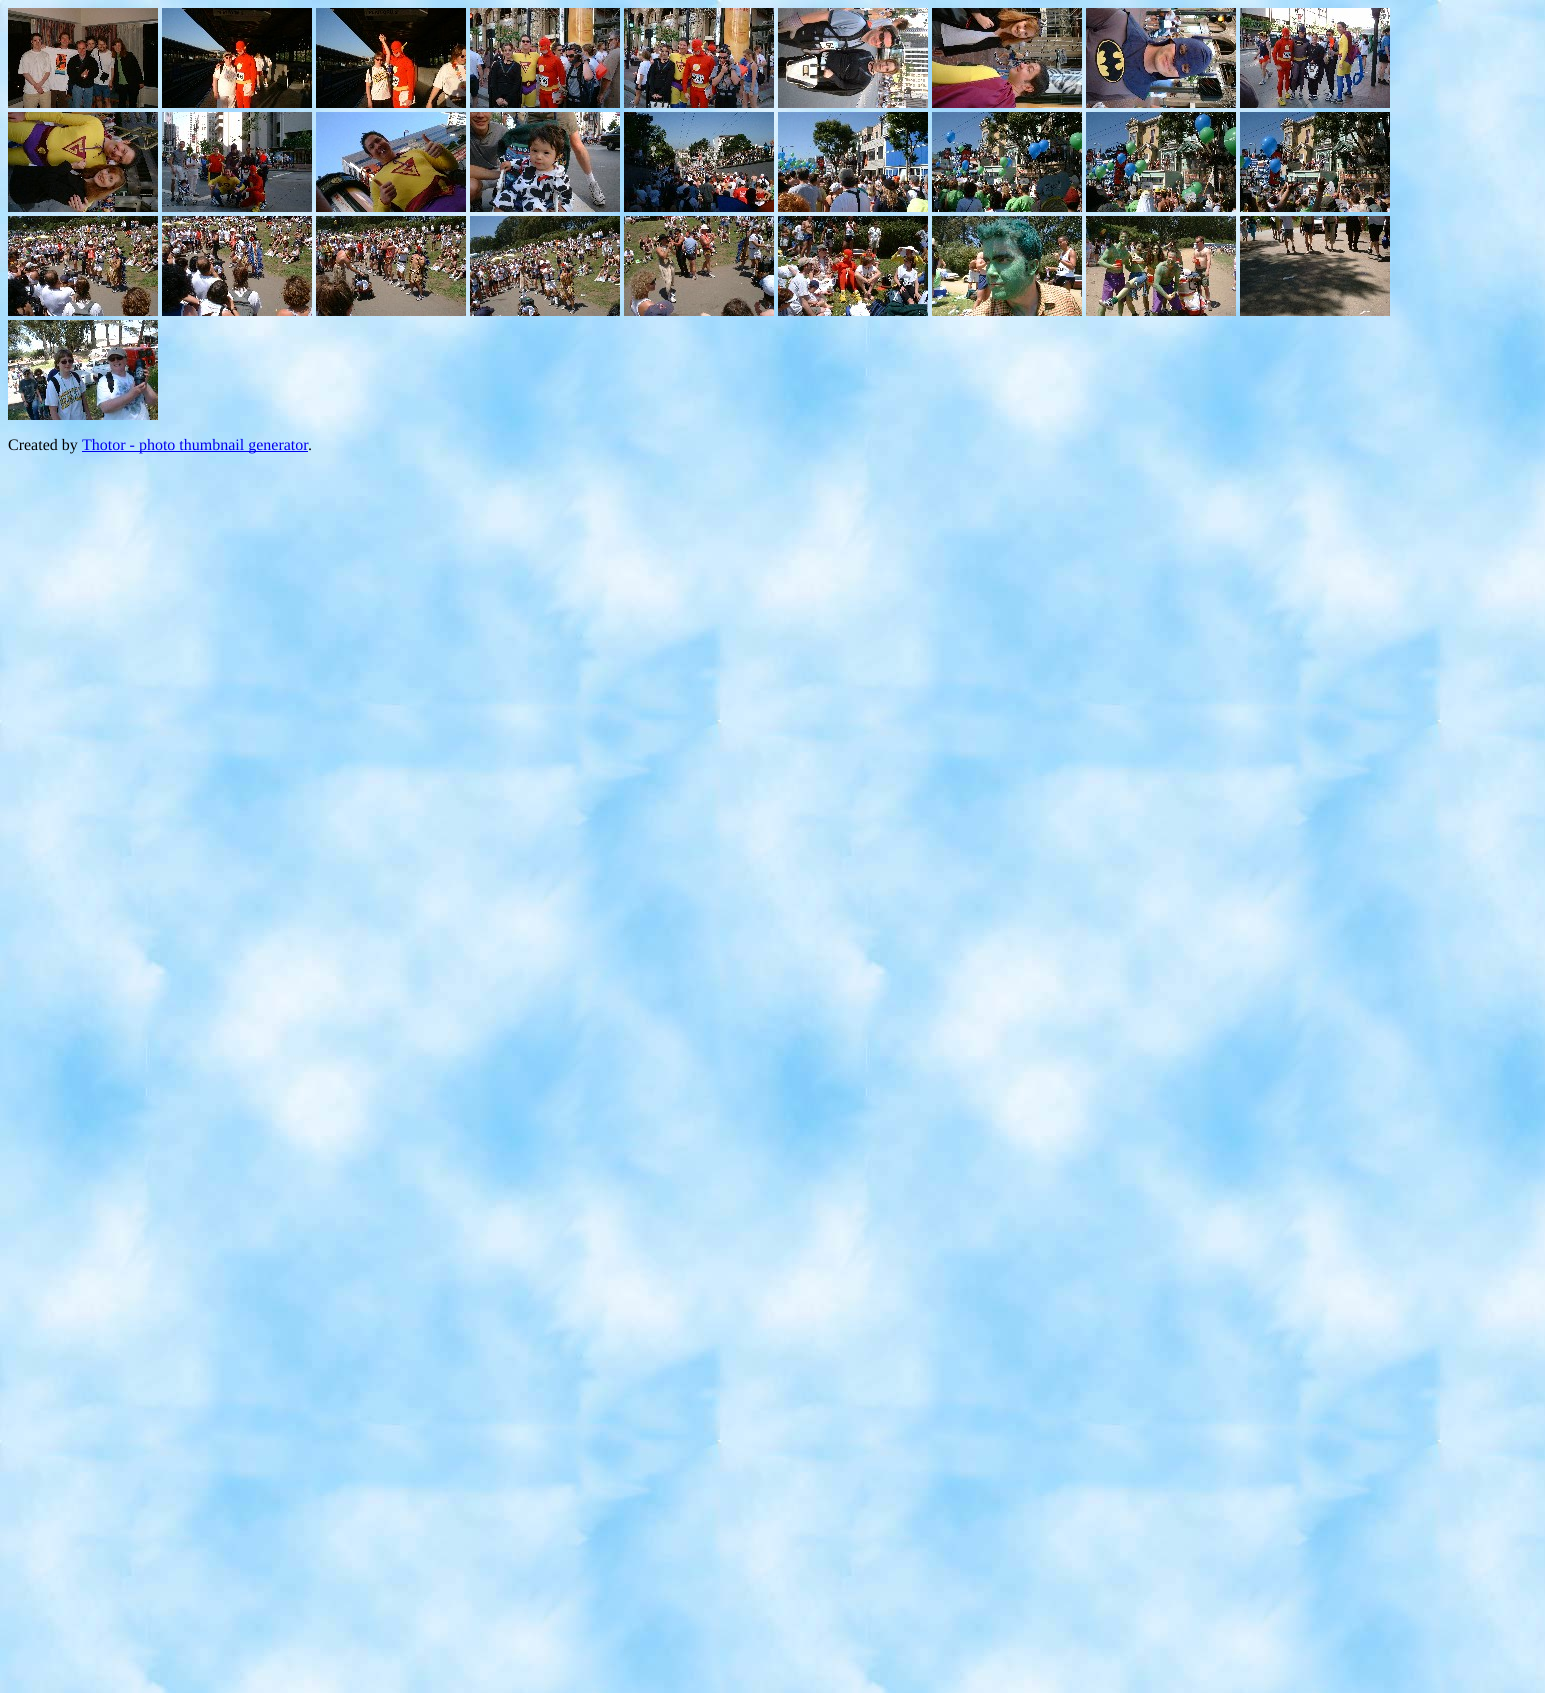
#include <cairo.h>
#include <math.h>
#include <stddef.h>

static cairo_t *c;
static void C(unsigned color){cairo_set_source_rgb(c, (color >> 16) / 255.0, (color >> 8 & 255) / 255.0, (color & 255) / 255.0);}
static void F(const char *family, double size, int italic, int bold){cairo_select_font_face(c, family, italic ? CAIRO_FONT_SLANT_ITALIC : CAIRO_FONT_SLANT_NORMAL,bold ? CAIRO_FONT_WEIGHT_BOLD : CAIRO_FONT_WEIGHT_NORMAL);cairo_set_font_size(c, size);}
static void T(double x, double y, const char *s){cairo_move_to(c, x, y);cairo_show_text(c, s);}
static void R(double x, double y, double w, double h){cairo_rectangle(c, x, y, w, h);cairo_fill(c);}
static void I(const char *path, double x, double y, double w, double h){cairo_surface_t *image = cairo_image_surface_create_from_png(path);cairo_save(c);cairo_set_source_surface(c, image, x, y);cairo_rectangle(c, x, y, w, h);cairo_fill(c);cairo_restore(c);cairo_surface_destroy(image);}
int main(void) {
cairo_surface_t *surface = cairo_image_surface_create(CAIRO_FORMAT_RGB24, 1545, 1693);
c = cairo_create(surface);
cairo_font_options_t *options = cairo_font_options_create();
cairo_font_options_set_hint_metrics(options, CAIRO_HINT_METRICS_OFF);
cairo_font_options_set_hint_style(options, CAIRO_HINT_STYLE_NONE);
cairo_set_font_options(c, options);
cairo_set_miter_limit(c, 4);
C(0xffffff);
cairo_paint(c);
I("1.png",0,0,1545,1693);
I("2.png",8,8,150,100);
I("3.png",162,8,150,100);
I("4.png",316,8,150,100);
I("5.png",470,8,150,100);
I("6.png",624,8,150,100);
I("7.png",778,8,150,100);
I("8.png",932,8,150,100);
I("9.png",1086,8,150,100);
I("10.png",1240,8,150,100);
I("11.png",8,112,150,100);
I("12.png",162,112,150,100);
I("13.png",316,112,150,100);
I("14.png",470,112,150,100);
I("15.png",624,112,150,100);
I("16.png",778,112,150,100);
I("17.png",932,112,150,100);
I("18.png",1086,112,150,100);
I("19.png",1240,112,150,100);
I("20.png",8,216,150,100);
I("21.png",162,216,150,100);
I("22.png",316,216,150,100);
I("23.png",470,216,150,100);
I("24.png",624,216,150,100);
I("25.png",778,216,150,100);
I("26.png",932,216,150,100);
I("27.png",1086,216,150,100);
I("28.png",1240,216,150,100);
I("29.png",8,320,150,100);
F("Liberation Serif",16,0,0);
C(0x000000);
T(8,450,"Created by");
C(0x0000ee);
R(82,451,226,1);
T(82,450,"Thotor - photo thumbnail generator");
C(0x000000);
T(308,450,".");
cairo_surface_write_to_png(surface, "o.png");
cairo_font_options_destroy(options);
cairo_destroy(c);
cairo_surface_destroy(surface);
return 0;
}
